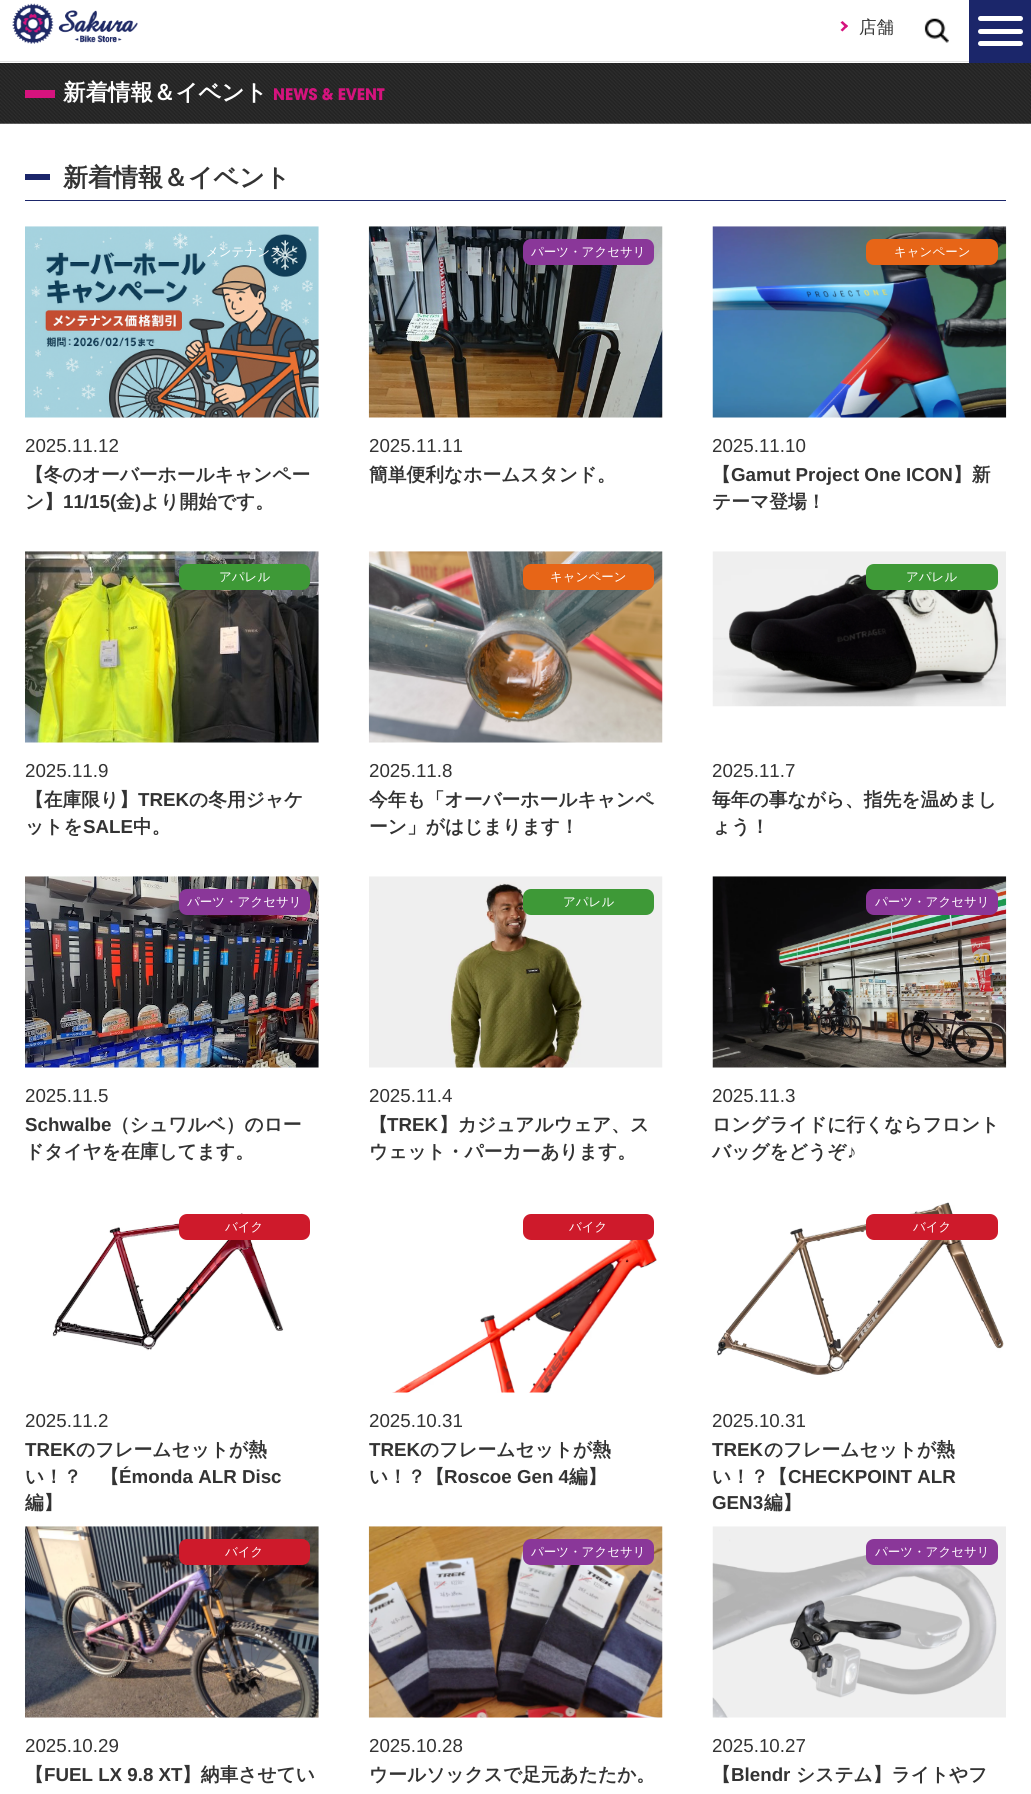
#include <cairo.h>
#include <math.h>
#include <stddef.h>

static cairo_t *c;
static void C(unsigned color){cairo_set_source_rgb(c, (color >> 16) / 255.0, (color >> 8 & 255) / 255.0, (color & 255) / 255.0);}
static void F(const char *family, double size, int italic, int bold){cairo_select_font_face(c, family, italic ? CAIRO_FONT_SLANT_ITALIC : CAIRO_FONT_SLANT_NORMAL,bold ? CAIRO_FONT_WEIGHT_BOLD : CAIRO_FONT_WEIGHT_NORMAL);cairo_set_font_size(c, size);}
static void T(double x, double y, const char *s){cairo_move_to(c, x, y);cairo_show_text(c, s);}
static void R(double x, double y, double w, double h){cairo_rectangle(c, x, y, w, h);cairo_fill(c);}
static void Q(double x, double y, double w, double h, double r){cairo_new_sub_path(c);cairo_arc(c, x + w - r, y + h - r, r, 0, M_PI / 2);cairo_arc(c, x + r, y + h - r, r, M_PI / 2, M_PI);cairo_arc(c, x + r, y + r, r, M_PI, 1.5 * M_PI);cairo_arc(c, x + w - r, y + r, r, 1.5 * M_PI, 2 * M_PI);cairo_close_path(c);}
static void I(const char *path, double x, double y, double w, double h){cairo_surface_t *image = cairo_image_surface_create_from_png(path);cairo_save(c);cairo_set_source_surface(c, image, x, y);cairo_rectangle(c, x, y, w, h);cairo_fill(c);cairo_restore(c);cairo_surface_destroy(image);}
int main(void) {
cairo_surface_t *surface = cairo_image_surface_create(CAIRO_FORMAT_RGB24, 1031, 1794);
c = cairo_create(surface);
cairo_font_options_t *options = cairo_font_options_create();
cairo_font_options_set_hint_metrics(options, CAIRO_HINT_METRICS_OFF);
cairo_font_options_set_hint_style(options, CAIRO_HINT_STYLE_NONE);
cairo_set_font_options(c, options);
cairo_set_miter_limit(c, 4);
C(0xffffff);
cairo_paint(c);
C(0xe2e2e2);
R(0,61,969,1);
I("1.png",12,3,126,41);
C(0xd5137e);
cairo_new_path(c);
cairo_move_to(c,840.5,22.5);
cairo_line_to(c,842.5,21);
cairo_line_to(c,848,26);
cairo_line_to(c,846,28);
cairo_close_path(c);
cairo_fill(c);
cairo_new_path(c);
cairo_move_to(c,840.5,30);
cairo_line_to(c,846,24.5);
cairo_line_to(c,848,26);
cairo_line_to(c,842.5,31.5);
cairo_close_path(c);
cairo_fill(c);
F("WenQuanYi Zen Hei Medium",17.5,0,0);
C(0x333333);
T(859,33,"店舗");
I("2.png",924,18,25,25);
C(0x1b266a);
R(969,0,62,63);
C(0xffffff);
Q(978,16,45,5,2.5);
cairo_fill(c);
Q(978,29,45,5,2.5);
cairo_fill(c);
Q(978,41,45,5,2.5);
cairo_fill(c);
I("3.png",0,63,1031,61);
C(0xd5137e);
R(25,90,30,8);
F("WenQuanYi Zen Hei",22.5,0,1);
C(0xffffff);
T(63,100,"新着情報＆イベント");
F("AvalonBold",17.5,0,1);
C(0xd5137e);
T(273,100,"NEWS & EVENT");
C(0x1b266a);
R(25,200,981,1);
R(25,174,25,6);
F("WenQuanYi Zen Hei",25,0,1);
C(0x333333);
T(63,186,"新着情報＆イベント");
I("4.png",25,226,294,192);
F("WenQuanYi Zen Hei Medium",12.5,0,0);
C(0xffffff);
T(206,256,"メンテナンス");
F("Liberation Sans",18.75,0,0);
C(0x333333);
T(25,452,"2025.11.12");
F("WenQuanYi Zen Hei",18.75,0,1);
T(25,481,"【冬のオーバーホールキャンペー");
T(25,508,"ン】");
F("Liberation Sans",18.75,0,1);
T(63,508,"11/15(");
F("WenQuanYi Zen Hei",18.75,0,1);
T(116,508,"金");
F("Liberation Sans",18.75,0,1);
T(135,508,")");
F("WenQuanYi Zen Hei",18.75,0,1);
T(141,508,"より開始です。");
I("5.png",368,226,295,192);
C(0x8a3799);
Q(523,239,131,26,8);
cairo_fill(c);
F("WenQuanYi Zen Hei Medium",12.5,0,0);
C(0xffffff);
T(531,256,"パーツ・アクセサリ");
F("Liberation Sans",18.75,0,0);
C(0x333333);
T(369,452,"2025.11.11");
F("WenQuanYi Zen Hei",18.75,0,1);
T(369,481,"簡単便利なホームスタンド。");
I("6.png",712,226,295,192);
C(0xe76517);
Q(866,239,132,26,8);
cairo_fill(c);
F("WenQuanYi Zen Hei Medium",12.5,0,0);
C(0xffffff);
T(894,256,"キャンペーン");
F("Liberation Sans",18.75,0,0);
C(0x333333);
T(712,452,"2025.11.10");
F("WenQuanYi Zen Hei",18.75,0,1);
T(712,481,"【");
F("Liberation Sans",18.75,0,1);
T(731,481,"Gamut Project One ICON");
F("WenQuanYi Zen Hei",18.75,0,1);
T(953,481,"】新");
T(712,508,"テーマ登場！");
I("7.png",25,551,294,192);
C(0x3e9937);
Q(179,564,131,26,8);
cairo_fill(c);
F("WenQuanYi Zen Hei Medium",12.5,0,0);
C(0xffffff);
T(219,581,"アパレル");
F("Liberation Sans",18.75,0,0);
C(0x333333);
T(25,777,"2025.11.9");
F("WenQuanYi Zen Hei",18.75,0,1);
T(25,806,"【在庫限り】");
F("Liberation Sans",18.75,0,1);
T(138,806,"TREK");
F("WenQuanYi Zen Hei",18.75,0,1);
T(189,806,"の冬用ジャケ");
T(25,833,"ットを");
F("Liberation Sans",18.75,0,1);
T(83,833,"SALE");
F("WenQuanYi Zen Hei",18.75,0,1);
T(133,833,"中。");
I("8.png",368,551,295,192);
C(0xe76517);
Q(523,564,131,26,8);
cairo_fill(c);
F("WenQuanYi Zen Hei Medium",12.5,0,0);
C(0xffffff);
T(550,581,"キャンペーン");
F("Liberation Sans",18.75,0,0);
C(0x333333);
T(369,777,"2025.11.8");
F("WenQuanYi Zen Hei",18.75,0,1);
T(369,806,"今年も「オーバーホールキャンペ");
T(369,833,"ーン」がはじまります！");
I("9.png",712,551,294,156);
C(0x3e9937);
Q(866,564,132,26,8);
cairo_fill(c);
F("WenQuanYi Zen Hei Medium",12.5,0,0);
C(0xffffff);
T(906,581,"アパレル");
F("Liberation Sans",18.75,0,0);
C(0x333333);
T(712,777,"2025.11.7");
F("WenQuanYi Zen Hei",18.75,0,1);
T(712,806,"毎年の事ながら、指先を温めまし");
T(712,833,"ょう！");
I("10.png",25,876,294,192);
C(0x8a3799);
Q(179,889,131,26,8);
cairo_fill(c);
F("WenQuanYi Zen Hei Medium",12.5,0,0);
C(0xffffff);
T(187,906,"パーツ・アクセサリ");
F("Liberation Sans",18.75,0,0);
C(0x333333);
T(25,1102,"2025.11.5");
F("Liberation Sans",18.75,0,1);
T(25,1131,"Schwalbe");
F("WenQuanYi Zen Hei",18.75,0,1);
T(111,1131,"（シュワルベ）のロー");
T(25,1158,"ドタイヤを在庫してます。");
I("11.png",369,876,294,192);
C(0x3e9937);
Q(523,889,131,26,8);
cairo_fill(c);
F("WenQuanYi Zen Hei Medium",12.5,0,0);
C(0xffffff);
T(563,906,"アパレル");
F("Liberation Sans",18.75,0,0);
C(0x333333);
T(369,1102,"2025.11.4");
F("WenQuanYi Zen Hei",18.75,0,1);
T(369,1131,"【");
F("Liberation Sans",18.75,0,1);
T(387,1131,"TREK");
F("WenQuanYi Zen Hei",18.75,0,1);
T(439,1131,"】カジュアルウェア、ス");
T(369,1158,"ウェット・パーカーあります。");
I("12.png",712,876,295,192);
C(0x8a3799);
Q(866,889,132,26,8);
cairo_fill(c);
F("WenQuanYi Zen Hei Medium",12.5,0,0);
C(0xffffff);
T(875,906,"パーツ・アクセサリ");
F("Liberation Sans",18.75,0,0);
C(0x333333);
T(712,1102,"2025.11.3");
F("WenQuanYi Zen Hei",18.75,0,1);
T(712,1131,"ロングライドに行くならフロント");
T(712,1158,"バッグをどうぞ");
F("Liberation Sans",18.75,0,1);
T(847,1158,"♪");
I("13.png",52,1213,232,138);
C(0xce1a2b);
Q(179,1214,131,26,8);
cairo_fill(c);
F("WenQuanYi Zen Hei Medium",12.5,0,0);
C(0xffffff);
T(225,1231,"バイク");
F("Liberation Sans",18.75,0,0);
C(0x333333);
T(25,1427,"2025.11.2");
F("Liberation Sans",18.75,0,1);
T(25,1456,"TREK");
F("WenQuanYi Zen Hei",18.75,0,1);
T(76,1456,"のフレームセットが熱");
T(25,1483,"い！？　【");
F("Liberation Sans",18.75,0,1);
T(119,1483,"Émonda ALR Disc");
F("WenQuanYi Zen Hei",18.75,0,1);
T(25,1509,"編】");
I("14.png",392,1233,265,160);
C(0xce1a2b);
Q(523,1214,131,26,8);
cairo_fill(c);
F("WenQuanYi Zen Hei Medium",12.5,0,0);
C(0xffffff);
T(569,1231,"バイク");
F("Liberation Sans",18.75,0,0);
C(0x333333);
T(369,1427,"2025.10.31");
F("Liberation Sans",18.75,0,1);
T(369,1456,"TREK");
F("WenQuanYi Zen Hei",18.75,0,1);
T(420,1456,"のフレームセットが熱");
T(369,1483,"い！？【");
F("Liberation Sans",18.75,0,1);
T(444,1483,"Roscoe Gen 4");
F("WenQuanYi Zen Hei",18.75,0,1);
T(569,1483,"編】");
I("15.png",716,1202,288,173);
C(0xce1a2b);
Q(866,1214,132,26,8);
cairo_fill(c);
F("WenQuanYi Zen Hei Medium",12.5,0,0);
C(0xffffff);
T(913,1231,"バイク");
F("Liberation Sans",18.75,0,0);
C(0x333333);
T(712,1427,"2025.10.31");
F("Liberation Sans",18.75,0,1);
T(712,1456,"TREK");
F("WenQuanYi Zen Hei",18.75,0,1);
T(764,1456,"のフレームセットが熱");
T(712,1483,"い！？【");
F("Liberation Sans",18.75,0,1);
T(788,1483,"CHECKPOINT ALR");
T(712,1509,"GEN3");
F("WenQuanYi Zen Hei",18.75,0,1);
T(764,1509,"編】");
I("16.png",25,1526,294,192);
C(0xce1a2b);
Q(179,1539,131,26,8);
cairo_fill(c);
F("WenQuanYi Zen Hei Medium",12.5,0,0);
C(0xffffff);
T(225,1556,"バイク");
F("Liberation Sans",18.75,0,0);
C(0x333333);
T(25,1752,"2025.10.29");
F("WenQuanYi Zen Hei",18.75,0,1);
T(25,1781,"【");
F("Liberation Sans",18.75,0,1);
T(44,1781,"FUEL LX 9.8 XT");
F("WenQuanYi Zen Hei",18.75,0,1);
T(182,1781,"】納車させてい");
I("17.png",368,1526,295,192);
C(0x8a3799);
Q(523,1539,131,26,8);
cairo_fill(c);
F("WenQuanYi Zen Hei Medium",12.5,0,0);
C(0xffffff);
T(531,1556,"パーツ・アクセサリ");
F("Liberation Sans",18.75,0,0);
C(0x333333);
T(369,1752,"2025.10.28");
F("WenQuanYi Zen Hei",18.75,0,1);
T(369,1781,"ウールソックスで足元あたたか。");
I("18.png",712,1526,294,192);
C(0x8a3799);
Q(866,1539,132,26,8);
cairo_fill(c);
F("WenQuanYi Zen Hei Medium",12.5,0,0);
C(0xffffff);
T(875,1556,"パーツ・アクセサリ");
F("Liberation Sans",18.75,0,0);
C(0x333333);
T(712,1752,"2025.10.27");
F("WenQuanYi Zen Hei",18.75,0,1);
T(712,1781,"【");
F("Liberation Sans",18.75,0,1);
T(731,1781,"Blendr");
F("WenQuanYi Zen Hei",18.75,0,1);
T(796,1781,"システム】ライトやフ");
cairo_surface_write_to_png(surface, "o.png");
cairo_font_options_destroy(options);
cairo_destroy(c);
cairo_surface_destroy(surface);
return 0;
}
